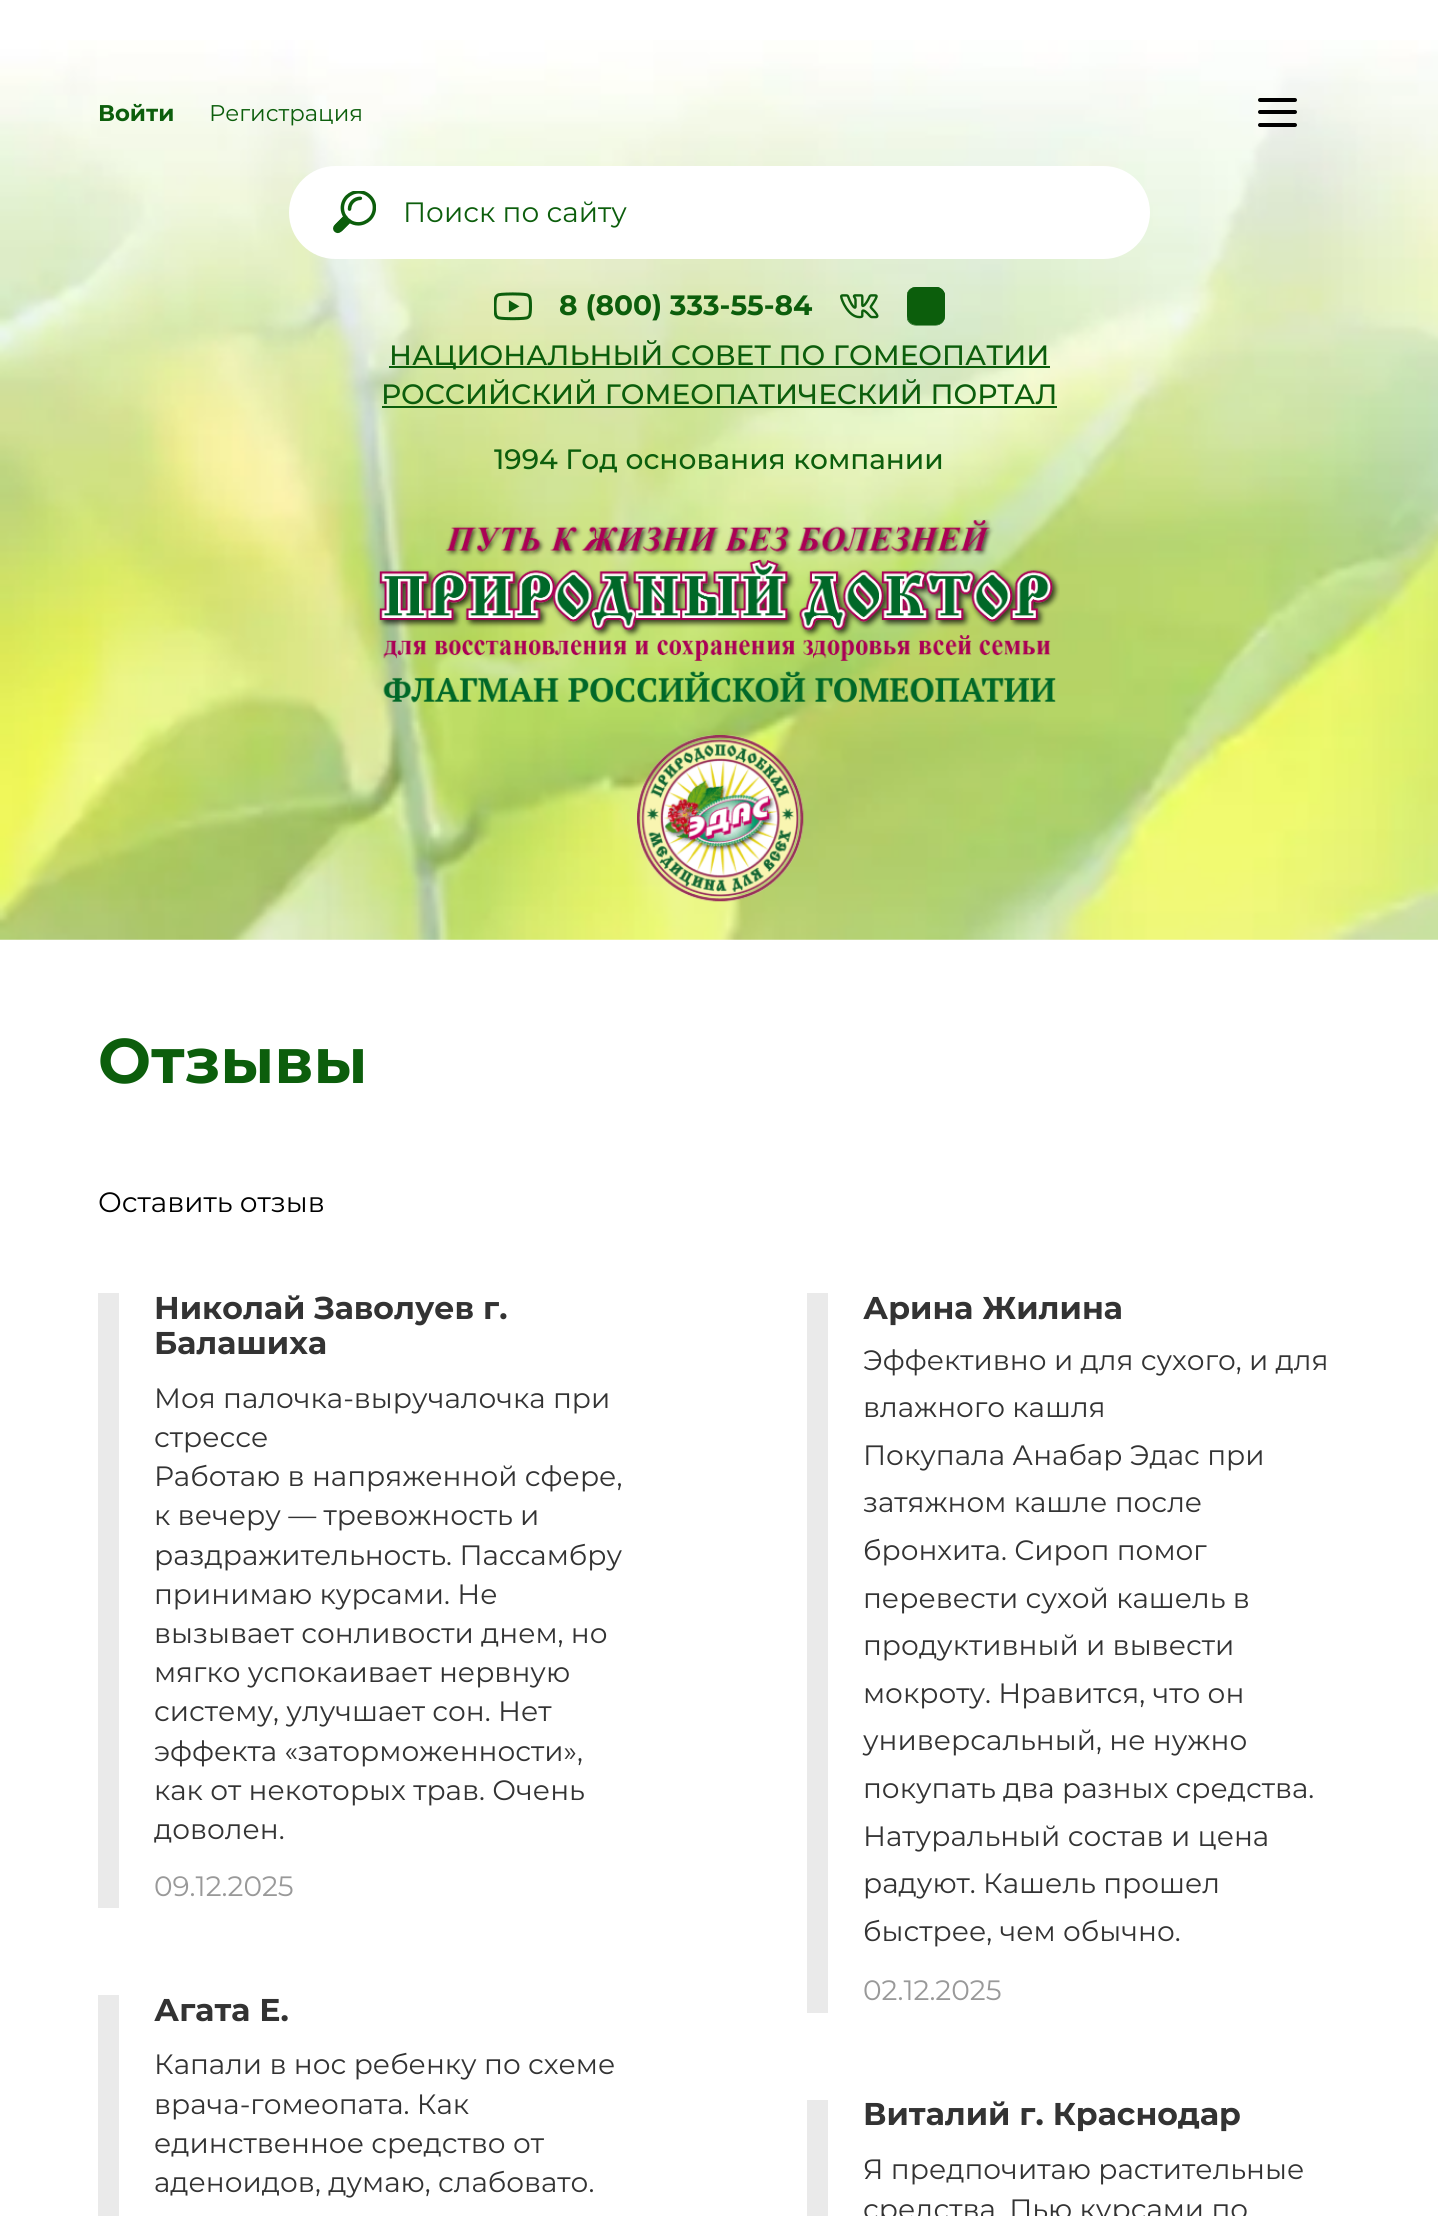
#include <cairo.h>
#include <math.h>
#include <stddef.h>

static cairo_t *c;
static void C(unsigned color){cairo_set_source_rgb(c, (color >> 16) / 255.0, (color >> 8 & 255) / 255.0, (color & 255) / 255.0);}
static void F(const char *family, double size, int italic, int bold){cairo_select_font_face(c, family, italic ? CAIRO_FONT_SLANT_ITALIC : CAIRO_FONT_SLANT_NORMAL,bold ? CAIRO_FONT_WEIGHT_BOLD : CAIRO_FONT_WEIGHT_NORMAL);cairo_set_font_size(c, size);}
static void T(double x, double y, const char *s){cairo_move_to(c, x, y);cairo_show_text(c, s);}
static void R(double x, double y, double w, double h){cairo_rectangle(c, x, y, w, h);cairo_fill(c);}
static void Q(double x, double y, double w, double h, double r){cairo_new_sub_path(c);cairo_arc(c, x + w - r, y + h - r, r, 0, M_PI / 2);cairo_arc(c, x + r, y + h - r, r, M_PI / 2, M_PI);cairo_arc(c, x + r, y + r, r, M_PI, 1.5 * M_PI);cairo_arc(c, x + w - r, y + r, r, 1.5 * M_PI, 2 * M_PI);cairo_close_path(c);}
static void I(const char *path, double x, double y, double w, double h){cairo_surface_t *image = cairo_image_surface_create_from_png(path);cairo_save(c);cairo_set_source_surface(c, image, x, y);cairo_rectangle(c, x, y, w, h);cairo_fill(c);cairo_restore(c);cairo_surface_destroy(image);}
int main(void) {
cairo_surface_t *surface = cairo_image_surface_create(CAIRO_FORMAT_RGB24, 1438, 2216);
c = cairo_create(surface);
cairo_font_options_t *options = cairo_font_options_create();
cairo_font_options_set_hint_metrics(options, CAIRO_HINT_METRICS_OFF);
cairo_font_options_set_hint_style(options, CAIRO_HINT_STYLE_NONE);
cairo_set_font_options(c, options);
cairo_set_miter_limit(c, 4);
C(0xffffff);
cairo_paint(c);
I("1.png",0,40,1438,900);
F("Montserrat",22.75,0,1);
C(0x0c5e0c);
T(98,121,"Войти");
F("Montserrat",22.75,0,0);
T(209,121,"Регистрация");
C(0x000000);
Q(1258,98,39,4,2);
cairo_fill(c);
Q(1258,110,39,4,2);
cairo_fill(c);
Q(1258,123,39,4,2);
cairo_fill(c);
C(0xffffff);
Q(289,166,861,93,46.5);
cairo_fill(c);
I("2.png",333,191,43,43);
F("Montserrat",28,0,0);
C(0x0c5e0c);
T(403,222,"Поиск по сайту");
I("3.png",494,292,38,29);
F("Montserrat",28,0,1);
T(559,315,"8 (800) 333-55-84");
I("4.png",840,294,39,25);
I("5.png",907,287,38,39);
R(389,366,661,2);
F("Montserrat Medium",28,0,0);
T(389,365,"НАЦИОНАЛЬНЫЙ СОВЕТ ПО ГОМЕОПАТИИ");
T(381,404,"РОССИЙСКИЙ ГОМЕОПАТИЧЕСКИЙ ПОРТАЛ");
R(382,406,675,2);
T(494,469,"1994 Год основания компании");
I("6.png",378,519,682,184);
I("7.png",637,735,167,167);
F("Montserrat",63,0,1);
T(98,1083,"Отзывы");
F("Montserrat",28,0,0);
C(0x000000);
T(98,1212,"Оставить отзыв");
C(0xeaeaea);
R(98,1293,21,615);
F("Montserrat",31.5,0,1);
C(0x333333);
T(154,1319,"Николай Заволуев г.");
T(154,1354,"Балашиха");
F("Montserrat",28,0,0);
T(154,1408,"Моя палочка-выручалочка при");
T(154,1447,"стрессе");
T(154,1486,"Работаю в напряженной сфере,");
T(154,1525,"к вечеру — тревожность и");
T(154,1565,"раздражительность. Пассамбру");
T(154,1604,"принимаю курсами. Не");
T(154,1643,"вызывает сонливости днем, но");
T(154,1682,"мягко успокаивает нервную");
T(154,1721,"систему, улучшает сон. Нет");
T(154,1761,"эффекта «заторможенности»,");
T(154,1800,"как от некоторых трав. Очень");
T(154,1839,"доволен.");
C(0x999999);
T(154,1896,"09.12.2025");
C(0xeaeaea);
R(807,1293,21,720);
F("Montserrat",31.5,0,1);
C(0x333333);
T(863,1319,"Арина Жилина");
F("Montserrat",28,0,0);
T(863,1370,"Эффективно и для сухого, и для");
T(863,1417,"влажного кашля");
T(863,1465,"Покупала Анабар Эдас при");
T(863,1512,"затяжном кашле после");
T(863,1560,"бронхита. Сироп помог");
T(863,1608,"перевести сухой кашель в");
T(863,1655,"продуктивный и вывести");
T(863,1703,"мокроту. Нравится, что он");
T(863,1750,"универсальный, не нужно");
T(863,1798,"покупать два разных средства.");
T(863,1846,"Натуральный состав и цена");
T(863,1893,"радуют. Кашель прошел");
T(863,1941,"быстрее, чем обычно.");
C(0x999999);
T(863,2000,"02.12.2025");
C(0xeaeaea);
R(98,1995,21,221);
F("Montserrat",31.5,0,1);
C(0x333333);
T(154,2021,"Агата Е.");
F("Montserrat",28,0,0);
T(154,2074,"Капали в нос ребенку по схеме");
T(154,2114,"врача-гомеопата. Как");
T(154,2153,"единственное средство от");
T(154,2192,"аденоидов, думаю, слабовато.");
C(0xeaeaea);
R(807,2100,21,116);
F("Montserrat",31.5,0,1);
C(0x333333);
T(863,2125,"Виталий г. Краснодар");
F("Montserrat",28,0,0);
T(863,2179,"Я предпочитаю растительные");
T(863,2219,"средства. Пью курсами по");
cairo_surface_write_to_png(surface, "o.png");
cairo_font_options_destroy(options);
cairo_destroy(c);
cairo_surface_destroy(surface);
return 0;
}
